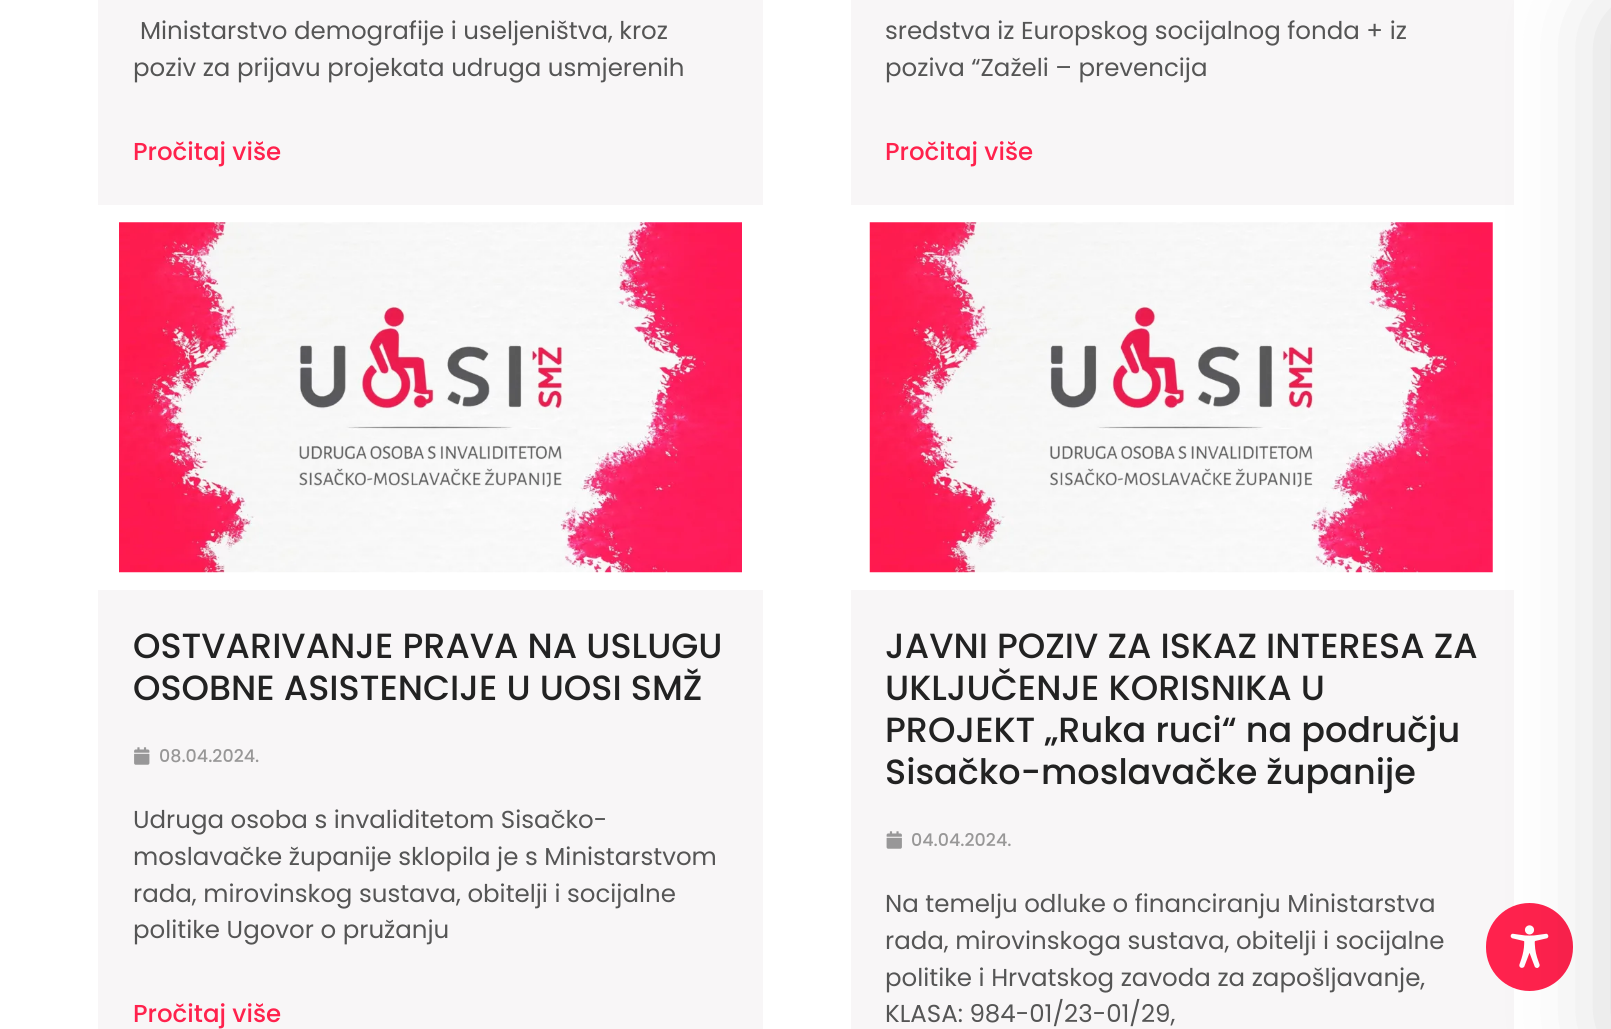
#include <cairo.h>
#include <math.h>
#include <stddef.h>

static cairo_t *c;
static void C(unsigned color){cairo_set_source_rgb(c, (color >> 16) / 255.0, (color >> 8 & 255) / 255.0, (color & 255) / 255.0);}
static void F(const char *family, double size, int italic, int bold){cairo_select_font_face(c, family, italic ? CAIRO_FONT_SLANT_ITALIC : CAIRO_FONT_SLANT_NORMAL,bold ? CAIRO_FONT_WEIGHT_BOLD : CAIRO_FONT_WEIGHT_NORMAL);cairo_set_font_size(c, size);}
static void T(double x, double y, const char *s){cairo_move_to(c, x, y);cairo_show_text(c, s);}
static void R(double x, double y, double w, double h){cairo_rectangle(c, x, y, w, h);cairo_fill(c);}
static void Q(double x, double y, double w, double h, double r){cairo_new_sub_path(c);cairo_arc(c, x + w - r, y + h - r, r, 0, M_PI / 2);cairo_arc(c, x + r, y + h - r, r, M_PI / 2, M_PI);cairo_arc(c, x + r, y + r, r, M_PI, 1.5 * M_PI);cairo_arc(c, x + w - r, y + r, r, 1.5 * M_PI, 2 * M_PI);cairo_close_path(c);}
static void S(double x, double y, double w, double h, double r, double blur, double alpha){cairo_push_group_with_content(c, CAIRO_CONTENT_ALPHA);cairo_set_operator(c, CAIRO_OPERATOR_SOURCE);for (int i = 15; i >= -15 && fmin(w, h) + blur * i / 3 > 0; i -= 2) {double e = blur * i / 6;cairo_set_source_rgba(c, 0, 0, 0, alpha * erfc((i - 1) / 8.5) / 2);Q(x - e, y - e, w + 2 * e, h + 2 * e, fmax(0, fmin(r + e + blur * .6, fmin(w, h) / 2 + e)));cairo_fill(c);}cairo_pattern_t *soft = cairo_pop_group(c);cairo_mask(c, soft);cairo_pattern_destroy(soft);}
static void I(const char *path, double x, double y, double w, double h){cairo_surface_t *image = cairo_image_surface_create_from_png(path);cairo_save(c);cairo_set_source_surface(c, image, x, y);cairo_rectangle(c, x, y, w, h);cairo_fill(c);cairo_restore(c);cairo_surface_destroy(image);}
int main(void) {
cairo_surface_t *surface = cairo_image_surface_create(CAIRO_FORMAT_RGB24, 1611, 1029);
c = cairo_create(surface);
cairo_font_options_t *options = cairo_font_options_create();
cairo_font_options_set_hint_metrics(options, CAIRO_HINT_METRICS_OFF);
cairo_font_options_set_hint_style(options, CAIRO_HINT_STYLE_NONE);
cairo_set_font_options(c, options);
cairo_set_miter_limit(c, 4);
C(0xffffff);
cairo_paint(c);
C(0xf8f6f7);
R(98,0,665,205);
F("Poppins",24.5,0,0);
C(0x555555);
T(140,39,"Ministarstvo demografije i useljeništva, kroz");
T(133,76,"poziv za prijavu projekata udruga usmjerenih");
F("Poppins Medium",24.5,0,0);
C(0xff224d);
T(133,160,"Pročitaj više");
C(0xf8f6f7);
R(851,0,663,205);
F("Poppins",24.5,0,0);
C(0x555555);
T(885,39,"sredstva iz Europskog socijalnog fonda + iz");
T(885,76,"poziva “Zaželi – prevencija");
F("Poppins Medium",24.5,0,0);
C(0xff224d);
T(885,160,"Pročitaj više");
I("1.png",119,222,623,351);
C(0xf8f6f7);
R(98,590,665,439);
F("Poppins Medium",35,0,0);
C(0x222222);
T(133,658,"OSTVARIVANJE PRAVA NA USLUGU");
T(133,700,"OSOBNE ASISTENCIJE U UOSI SMŽ");
I("2.png",134,747,16,18);
F("Poppins Medium",17.5,0,0);
C(0x989797);
T(159,762,"08.04.2024.");
F("Poppins",24.5,0,0);
C(0x555555);
T(133,828,"Udruga osoba s invaliditetom Sisačko-");
T(133,865,"moslavačke županije sklopila je s Ministarstvom");
T(133,902,"rada, mirovinskog sustava, obitelji i socijalne");
T(133,938,"politike Ugovor o pružanju");
F("Poppins Medium",24.5,0,0);
C(0xff224d);
T(133,1022,"Pročitaj više");
I("3.png",869,222,624,351);
C(0xf8f6f7);
R(851,590,663,439);
F("Poppins Medium",35,0,0);
C(0x222222);
T(885,658,"JAVNI POZIV ZA ISKAZ INTERESA ZA");
T(885,700,"UKLJUČENJE KORISNIKA U");
T(885,742,"PROJEKT „Ruka ruci“ na području");
T(885,784,"Sisačko-moslavačke županije");
I("4.png",886,831,16,18);
F("Poppins Medium",17.5,0,0);
C(0x989797);
T(911,846,"04.04.2024.");
F("Poppins",24.5,0,0);
C(0x555555);
T(885,912,"Na temelju odluke o financiranju Ministarstva");
T(885,949,"rada, mirovinskoga sustava, obitelji i socijalne");
T(885,986,"politike i Hrvatskog zavoda za zapošljavanje,");
T(885,1022,"KLASA: 984-01/23-01/29,");
C(0xff224d);
Q(1486,903,87,88,43.5);
cairo_fill(c);
I("5.png",1510,925,39,43);
C(0x000000);
S(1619,18,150,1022,0,52.5,.2);
cairo_surface_write_to_png(surface, "o.png");
cairo_font_options_destroy(options);
cairo_destroy(c);
cairo_surface_destroy(surface);
return 0;
}
